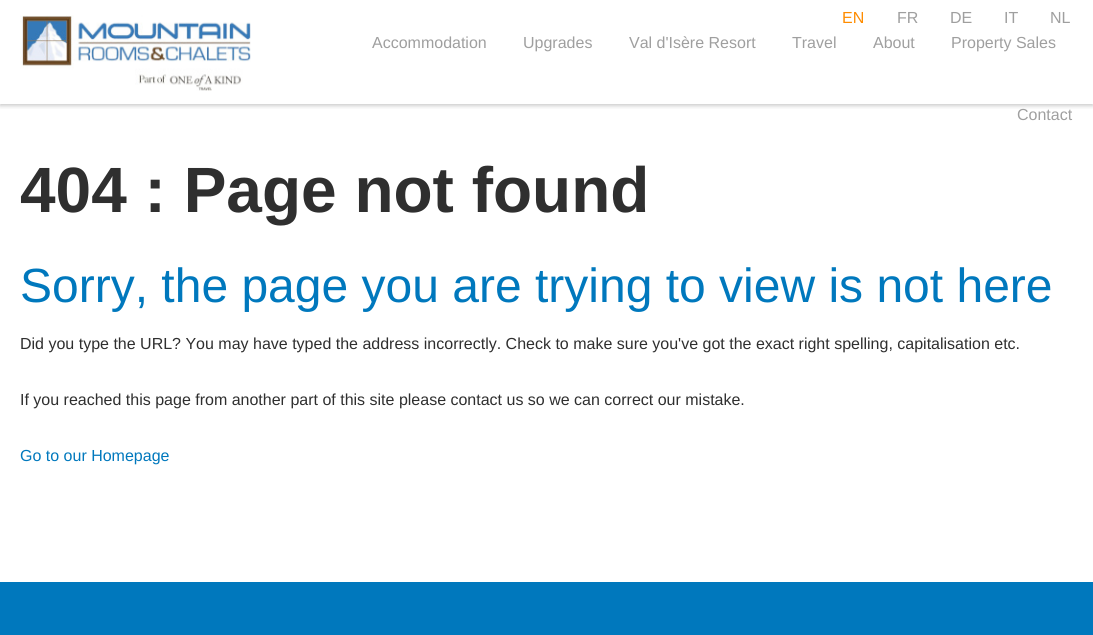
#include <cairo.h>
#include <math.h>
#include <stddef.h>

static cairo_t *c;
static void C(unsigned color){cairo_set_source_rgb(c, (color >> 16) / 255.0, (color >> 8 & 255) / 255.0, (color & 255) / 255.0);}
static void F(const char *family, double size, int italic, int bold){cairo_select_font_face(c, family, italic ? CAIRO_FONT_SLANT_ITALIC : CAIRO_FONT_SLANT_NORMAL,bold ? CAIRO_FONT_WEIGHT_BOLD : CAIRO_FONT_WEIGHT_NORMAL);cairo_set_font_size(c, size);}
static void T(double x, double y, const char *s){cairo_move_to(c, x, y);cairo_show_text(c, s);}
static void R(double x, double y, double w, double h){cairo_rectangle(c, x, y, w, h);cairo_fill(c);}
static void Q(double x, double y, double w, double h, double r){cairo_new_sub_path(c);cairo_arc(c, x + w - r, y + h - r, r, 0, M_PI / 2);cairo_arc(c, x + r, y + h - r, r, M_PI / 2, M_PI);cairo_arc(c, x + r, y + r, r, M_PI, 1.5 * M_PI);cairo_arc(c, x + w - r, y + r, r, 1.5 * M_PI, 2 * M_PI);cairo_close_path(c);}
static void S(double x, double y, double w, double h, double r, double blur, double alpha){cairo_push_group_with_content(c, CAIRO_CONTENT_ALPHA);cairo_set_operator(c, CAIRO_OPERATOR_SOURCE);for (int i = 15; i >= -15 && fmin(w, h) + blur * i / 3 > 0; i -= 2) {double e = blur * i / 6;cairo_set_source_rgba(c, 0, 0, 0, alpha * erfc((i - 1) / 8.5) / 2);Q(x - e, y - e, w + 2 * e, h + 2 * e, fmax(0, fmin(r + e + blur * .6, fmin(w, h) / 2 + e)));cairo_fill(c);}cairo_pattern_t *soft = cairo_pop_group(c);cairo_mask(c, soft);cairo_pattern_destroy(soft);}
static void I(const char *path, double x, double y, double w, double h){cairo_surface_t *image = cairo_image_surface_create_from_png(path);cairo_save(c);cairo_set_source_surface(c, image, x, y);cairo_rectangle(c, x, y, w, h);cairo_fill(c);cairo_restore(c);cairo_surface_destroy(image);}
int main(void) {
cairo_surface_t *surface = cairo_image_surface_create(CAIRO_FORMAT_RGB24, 1093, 635);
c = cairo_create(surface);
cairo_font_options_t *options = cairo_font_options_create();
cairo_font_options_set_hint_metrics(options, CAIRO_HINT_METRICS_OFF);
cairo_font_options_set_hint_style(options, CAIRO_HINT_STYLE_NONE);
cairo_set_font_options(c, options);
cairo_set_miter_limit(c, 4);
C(0xffffff);
cairo_paint(c);
cairo_save(c);
cairo_rectangle(c,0,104,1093,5);
cairo_clip(c);
C(0x000000);
S(0,2,1093,104,0,2,.2);
cairo_restore(c);
I("1.png",20,15,231,76);
F("Liberation Sans",16,0,0);
C(0xff8c00);
T(842,23,"EN");
C(0x9f9f9f);
T(897,23,"FR");
T(950,23,"DE");
T(1004,23,"IT");
T(1050,23,"NL");
T(372,48,"Accommodation");
T(523,48,"Upgrades");
T(629,48,"Val d'Isère Resort");
T(792,48,"Travel");
T(873,48,"About");
T(951,48,"Property Sales");
T(1017,120,"Contact");
F("Liberation Sans",64,0,1);
C(0x2f2f2f);
T(20,212,"404 : Page not found");
F("Liberation Sans",48,0,0);
C(0x0078bd);
T(20,302,"Sorry, the page you are trying to view is not here");
F("Liberation Sans",16,0,0);
C(0x2f2f2f);
T(20,349,"Did you type the URL? You may have typed the address incorrectly. Check to make sure you've got the exact right spelling, capitalisation etc.");
T(20,405,"If you reached this page from another part of this site please contact us so we can correct our mistake.");
C(0x0078bd);
T(20,461,"Go to our Homepage");
R(0,582,1093,53);
cairo_surface_write_to_png(surface, "o.png");
cairo_font_options_destroy(options);
cairo_destroy(c);
cairo_surface_destroy(surface);
return 0;
}
